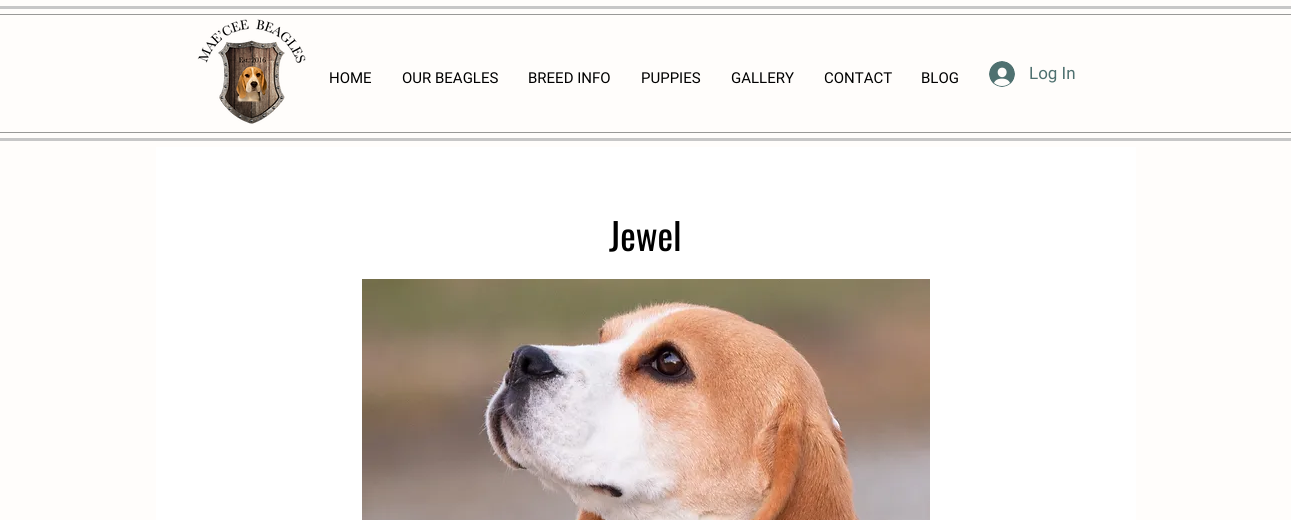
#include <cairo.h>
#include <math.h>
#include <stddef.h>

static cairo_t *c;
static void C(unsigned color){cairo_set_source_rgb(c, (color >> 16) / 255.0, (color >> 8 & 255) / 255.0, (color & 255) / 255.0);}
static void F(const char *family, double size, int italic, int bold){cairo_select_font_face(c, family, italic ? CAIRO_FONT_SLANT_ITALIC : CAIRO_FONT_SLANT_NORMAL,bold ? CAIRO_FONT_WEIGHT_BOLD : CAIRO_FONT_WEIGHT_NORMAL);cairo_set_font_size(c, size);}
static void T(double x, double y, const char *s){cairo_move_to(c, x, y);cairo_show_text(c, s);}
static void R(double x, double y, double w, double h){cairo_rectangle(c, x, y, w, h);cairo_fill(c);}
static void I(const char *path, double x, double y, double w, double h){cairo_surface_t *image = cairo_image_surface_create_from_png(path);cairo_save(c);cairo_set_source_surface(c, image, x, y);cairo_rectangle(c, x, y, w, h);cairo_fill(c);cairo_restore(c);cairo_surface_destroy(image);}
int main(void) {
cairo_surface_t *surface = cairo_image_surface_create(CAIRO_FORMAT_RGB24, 1291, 520);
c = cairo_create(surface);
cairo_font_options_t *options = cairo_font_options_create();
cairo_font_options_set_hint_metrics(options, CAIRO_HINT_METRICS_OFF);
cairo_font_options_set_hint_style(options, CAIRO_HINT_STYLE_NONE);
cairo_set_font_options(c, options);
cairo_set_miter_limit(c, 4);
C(0xfffdfb);
cairo_paint(c);
C(0xc7c7c7);
R(0,6,1291,3);
R(0,138,1291,3);
C(0x999997);
R(0,14,1291,1);
R(0,132,1291,1);
I("1.png",197,19,109,105);
F("Roboto",15,0,0);
C(0x000000);
T(329,83,"HOME");
T(402,83,"OUR BEAGLES");
T(528,83,"BREED INFO");
T(641,83,"PUPPIES");
T(731,83,"GALLERY");
T(824,83,"CONTACT");
T(921,83,"BLOG");
I("2.png",989,61,26,26);
F("Roboto",17,0,0);
C(0x4f7170);
T(1029,79,"Log In");
C(0xffffff);
R(156,147,980,373);
F("Oswald",37,0,0);
C(0x000000);
T(609,251,"Jewel");
I("3.png",362,279,568,241);
cairo_surface_write_to_png(surface, "o.png");
cairo_font_options_destroy(options);
cairo_destroy(c);
cairo_surface_destroy(surface);
return 0;
}
